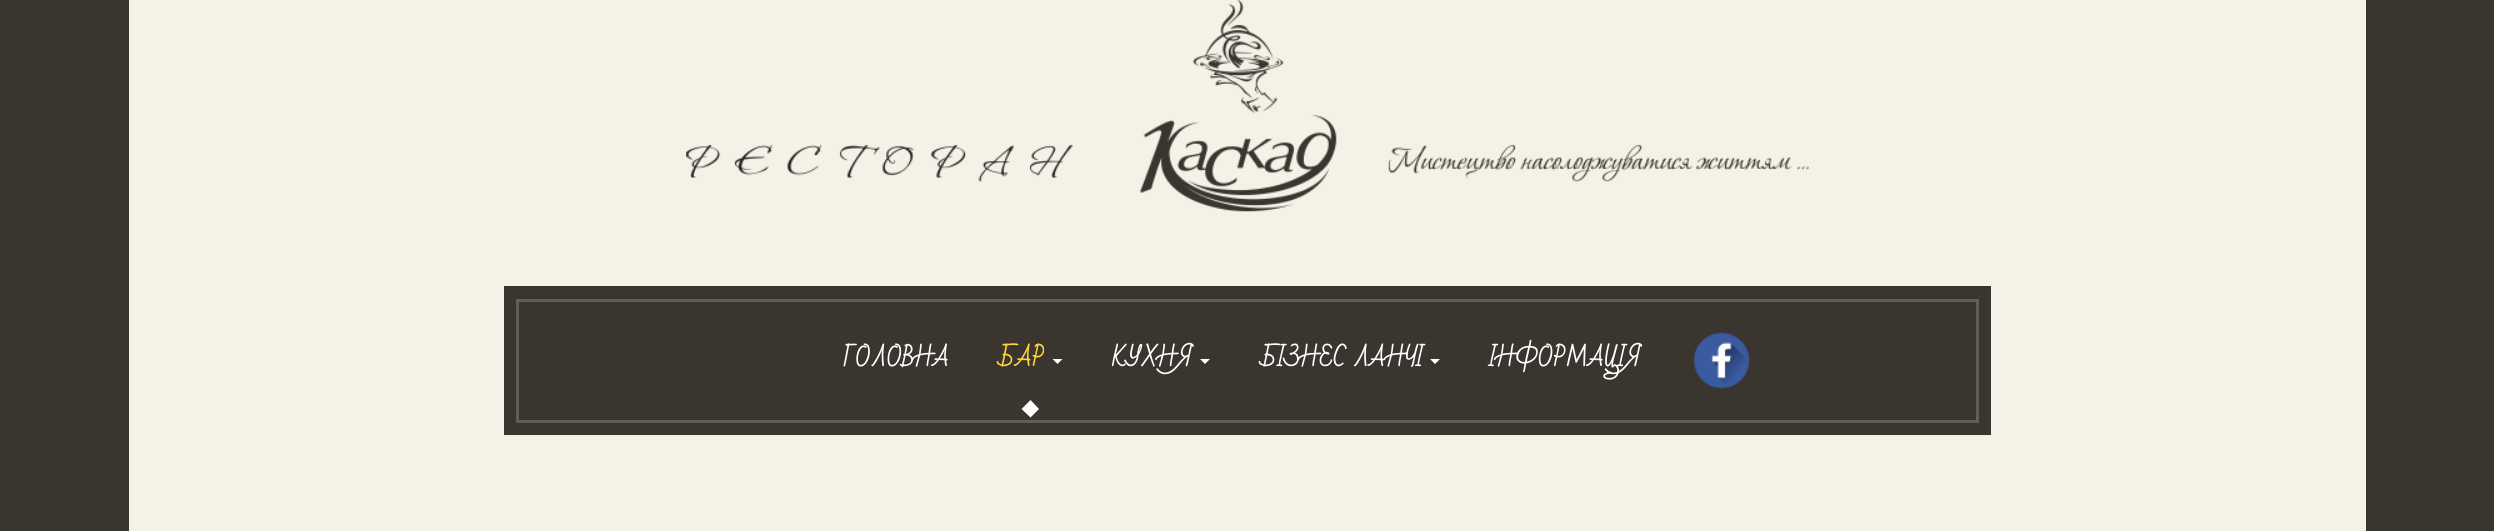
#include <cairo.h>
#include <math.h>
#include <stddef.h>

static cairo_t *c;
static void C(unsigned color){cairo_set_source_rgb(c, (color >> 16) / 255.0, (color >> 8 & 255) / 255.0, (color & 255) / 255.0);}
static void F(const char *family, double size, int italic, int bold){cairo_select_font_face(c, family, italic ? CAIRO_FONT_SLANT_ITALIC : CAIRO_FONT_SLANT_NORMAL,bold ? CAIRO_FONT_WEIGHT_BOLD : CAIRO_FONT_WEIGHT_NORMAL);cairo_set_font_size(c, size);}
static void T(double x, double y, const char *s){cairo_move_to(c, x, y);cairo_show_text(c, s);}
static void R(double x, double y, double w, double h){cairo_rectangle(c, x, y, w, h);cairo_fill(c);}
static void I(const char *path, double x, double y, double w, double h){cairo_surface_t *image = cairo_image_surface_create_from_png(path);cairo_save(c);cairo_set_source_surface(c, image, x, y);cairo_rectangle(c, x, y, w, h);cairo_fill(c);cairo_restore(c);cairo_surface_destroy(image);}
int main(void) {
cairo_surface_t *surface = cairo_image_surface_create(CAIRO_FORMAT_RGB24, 2494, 531);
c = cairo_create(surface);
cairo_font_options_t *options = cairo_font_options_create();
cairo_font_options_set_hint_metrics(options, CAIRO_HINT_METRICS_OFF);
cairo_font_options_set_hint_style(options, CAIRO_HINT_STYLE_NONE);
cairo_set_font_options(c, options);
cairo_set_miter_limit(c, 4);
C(0x3a352f);
cairo_paint(c);
C(0xf4f2e7);
R(129,0,2237,531);
I("1.png",686,0,1123,212);
C(0x3a352f);
R(504,286,1487,149);
cairo_rectangle(c,517.5,300.5,1460,121);
C(0x615e59);
cairo_set_line_width(c,3);
cairo_stroke(c);
F("Bad Script",22.5,0,1);
C(0xffffff);
T(843,366,"ГОЛОВНА");
C(0xffd33d);
T(998,366,"БАР");
C(0xffffff);
cairo_new_path(c);
cairo_move_to(c,1052.5,359);
cairo_line_to(c,1062.5,359);
cairo_line_to(c,1057.5,364);
cairo_close_path(c);
cairo_fill(c);
cairo_new_path(c);
cairo_move_to(c,1030.5,400);
cairo_line_to(c,1039,409);
cairo_line_to(c,1030.5,417.5);
cairo_line_to(c,1021.5,409);
cairo_close_path(c);
cairo_fill(c);
T(1112,366,"КУХНЯ");
cairo_new_path(c);
cairo_move_to(c,1200,359);
cairo_line_to(c,1210,359);
cairo_line_to(c,1205,364);
cairo_close_path(c);
cairo_fill(c);
T(1260,366,"БІЗНЕС ЛАНЧІ");
cairo_new_path(c);
cairo_move_to(c,1430,359);
cairo_line_to(c,1440,359);
cairo_line_to(c,1435,364);
cairo_close_path(c);
cairo_fill(c);
T(1489,366,"ІНФОРМАЦІЯ");
I("2.png",1693,332,57,57);
cairo_surface_write_to_png(surface, "o.png");
cairo_font_options_destroy(options);
cairo_destroy(c);
cairo_surface_destroy(surface);
return 0;
}
